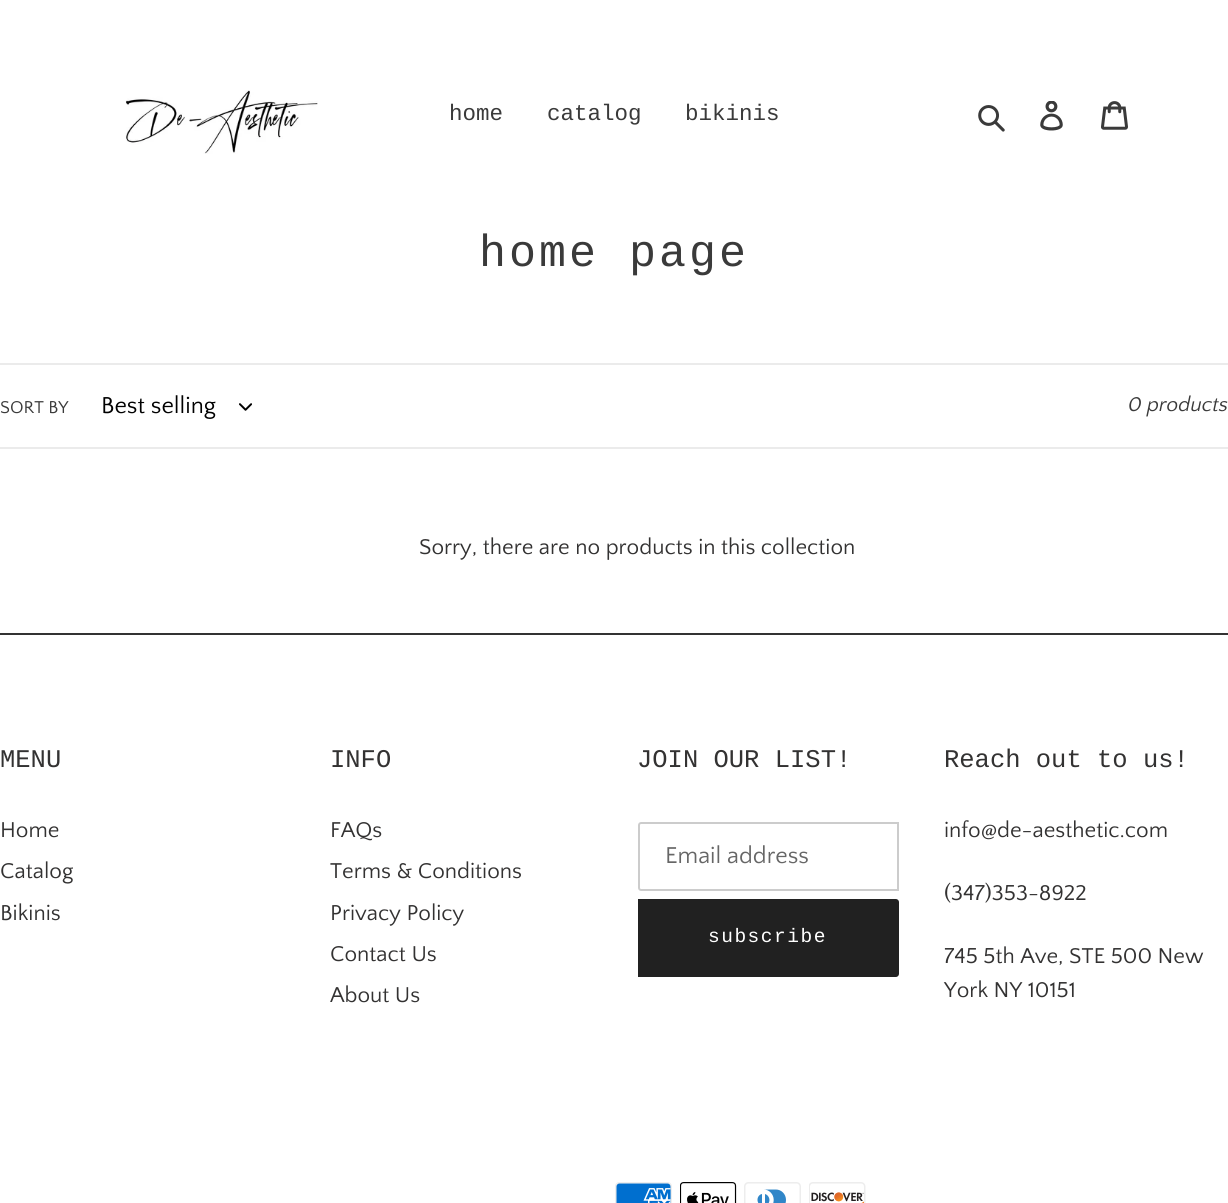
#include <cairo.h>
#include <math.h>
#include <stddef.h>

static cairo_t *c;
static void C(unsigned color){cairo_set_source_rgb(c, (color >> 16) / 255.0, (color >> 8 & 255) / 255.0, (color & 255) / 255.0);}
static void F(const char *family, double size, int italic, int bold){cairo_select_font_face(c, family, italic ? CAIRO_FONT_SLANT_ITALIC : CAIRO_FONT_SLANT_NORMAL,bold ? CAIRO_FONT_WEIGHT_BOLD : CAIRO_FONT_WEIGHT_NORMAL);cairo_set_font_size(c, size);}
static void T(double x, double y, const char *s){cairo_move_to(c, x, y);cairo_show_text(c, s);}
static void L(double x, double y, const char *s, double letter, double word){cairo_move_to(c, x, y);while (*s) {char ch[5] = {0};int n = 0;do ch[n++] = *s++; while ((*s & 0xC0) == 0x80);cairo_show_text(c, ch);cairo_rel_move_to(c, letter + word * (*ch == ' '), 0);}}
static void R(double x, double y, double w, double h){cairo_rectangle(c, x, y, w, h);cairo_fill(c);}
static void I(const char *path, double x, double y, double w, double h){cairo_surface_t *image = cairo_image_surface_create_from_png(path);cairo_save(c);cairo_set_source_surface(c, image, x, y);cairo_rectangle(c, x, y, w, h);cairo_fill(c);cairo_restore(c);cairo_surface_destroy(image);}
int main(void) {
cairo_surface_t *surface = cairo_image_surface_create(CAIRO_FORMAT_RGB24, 1228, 1203);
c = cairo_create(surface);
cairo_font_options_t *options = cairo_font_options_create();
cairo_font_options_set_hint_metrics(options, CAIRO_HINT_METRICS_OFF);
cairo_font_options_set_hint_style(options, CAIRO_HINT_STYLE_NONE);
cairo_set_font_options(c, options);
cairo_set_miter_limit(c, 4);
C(0xffffff);
cairo_paint(c);
I("1.png",125,90,193,64);
F("Liberation Mono",22.5,0,0);
C(0x3a3a3a);
T(449,120,"home");
T(547,120,"catalog");
T(685,120,"bikinis");
I("2.png",978,105,27,27);
I("3.png",1040,101,23,30);
I("4.png",1101,101,27,29);
F("Liberation Mono",45,0,0);
L(479,266,"home page",3,0);
C(0xebebeb);
R(0,363,1228,2);
R(0,447,1228,2);
F("Quattrocento Sans",18,0,0);
C(0x3a3a3a);
T(0,413,"SORT BY");
F("Quattrocento Sans",24,0,0);
C(0x000000);
T(101,413,"Best selling");
I("5.png",239,403,13,8);
F("Quattrocento Sans",21,1,0);
C(0x3a3a3a);
T(1128,411,"0 products");
F("Quattrocento Sans",22.5,0,0);
C(0x333232);
T(419,554,"Sorry, there are no products in this collection");
R(0,633,1228,2);
F("Liberation Mono",25.5,0,0);
T(0,767,"MENU");
F("Quattrocento Sans",22.5,0,0);
T(0,837,"Home");
T(0,878,"Catalog");
T(0,920,"Bikinis");
F("Liberation Mono",25.5,0,0);
T(330,767,"INFO");
F("Quattrocento Sans",22.5,0,0);
T(330,837,"FAQs");
T(330,878,"Terms & Conditions");
T(330,920,"Privacy Policy");
T(330,961,"Contact Us");
T(330,1002,"About Us");
F("Liberation Mono",25.5,0,0);
T(637,767,"JOIN OUR LIST!");
cairo_new_path(c);
cairo_move_to(c,641,823);
cairo_line_to(c,898,823);
cairo_line_to(c,898,890);
cairo_line_to(c,641,890);
cairo_curve_to(c,640,890,639,889,639,888);
cairo_line_to(c,639,825);
cairo_curve_to(c,639,824,640,823,641,823);
cairo_close_path(c);
C(0xcccccc);
cairo_stroke(c);
F("Quattrocento Sans",24,0,0);
C(0x666666);
T(665,863,"Email address");
C(0x212121);
cairo_new_path(c);
cairo_move_to(c,638,899);
cairo_line_to(c,896,899);
cairo_curve_to(c,897.5,899,899,900.5,899,902);
cairo_line_to(c,899,974);
cairo_curve_to(c,899,975.5,897.5,977,896,977);
cairo_line_to(c,638,977);
cairo_close_path(c);
cairo_fill(c);
F("Liberation Mono",19.5,0,0);
C(0xffffff);
L(708,942,"subscribe",1.5,0);
F("Liberation Mono",25.5,0,0);
C(0x333232);
T(944,767,"Reach out to us!");
F("Quattrocento Sans",22.5,0,0);
T(944,837,"info@de-aesthetic.com");
T(944,900,"(347)353-8922");
T(944,963,"745 5th Ave, STE 500 New");
T(944,997,"York NY 10151");
I("6.png",615,1182,57,21);
I("7.png",680,1182,57,21);
I("8.png",744,1182,57,21);
I("9.png",809,1182,57,21);
cairo_surface_write_to_png(surface, "o.png");
cairo_font_options_destroy(options);
cairo_destroy(c);
cairo_surface_destroy(surface);
return 0;
}
